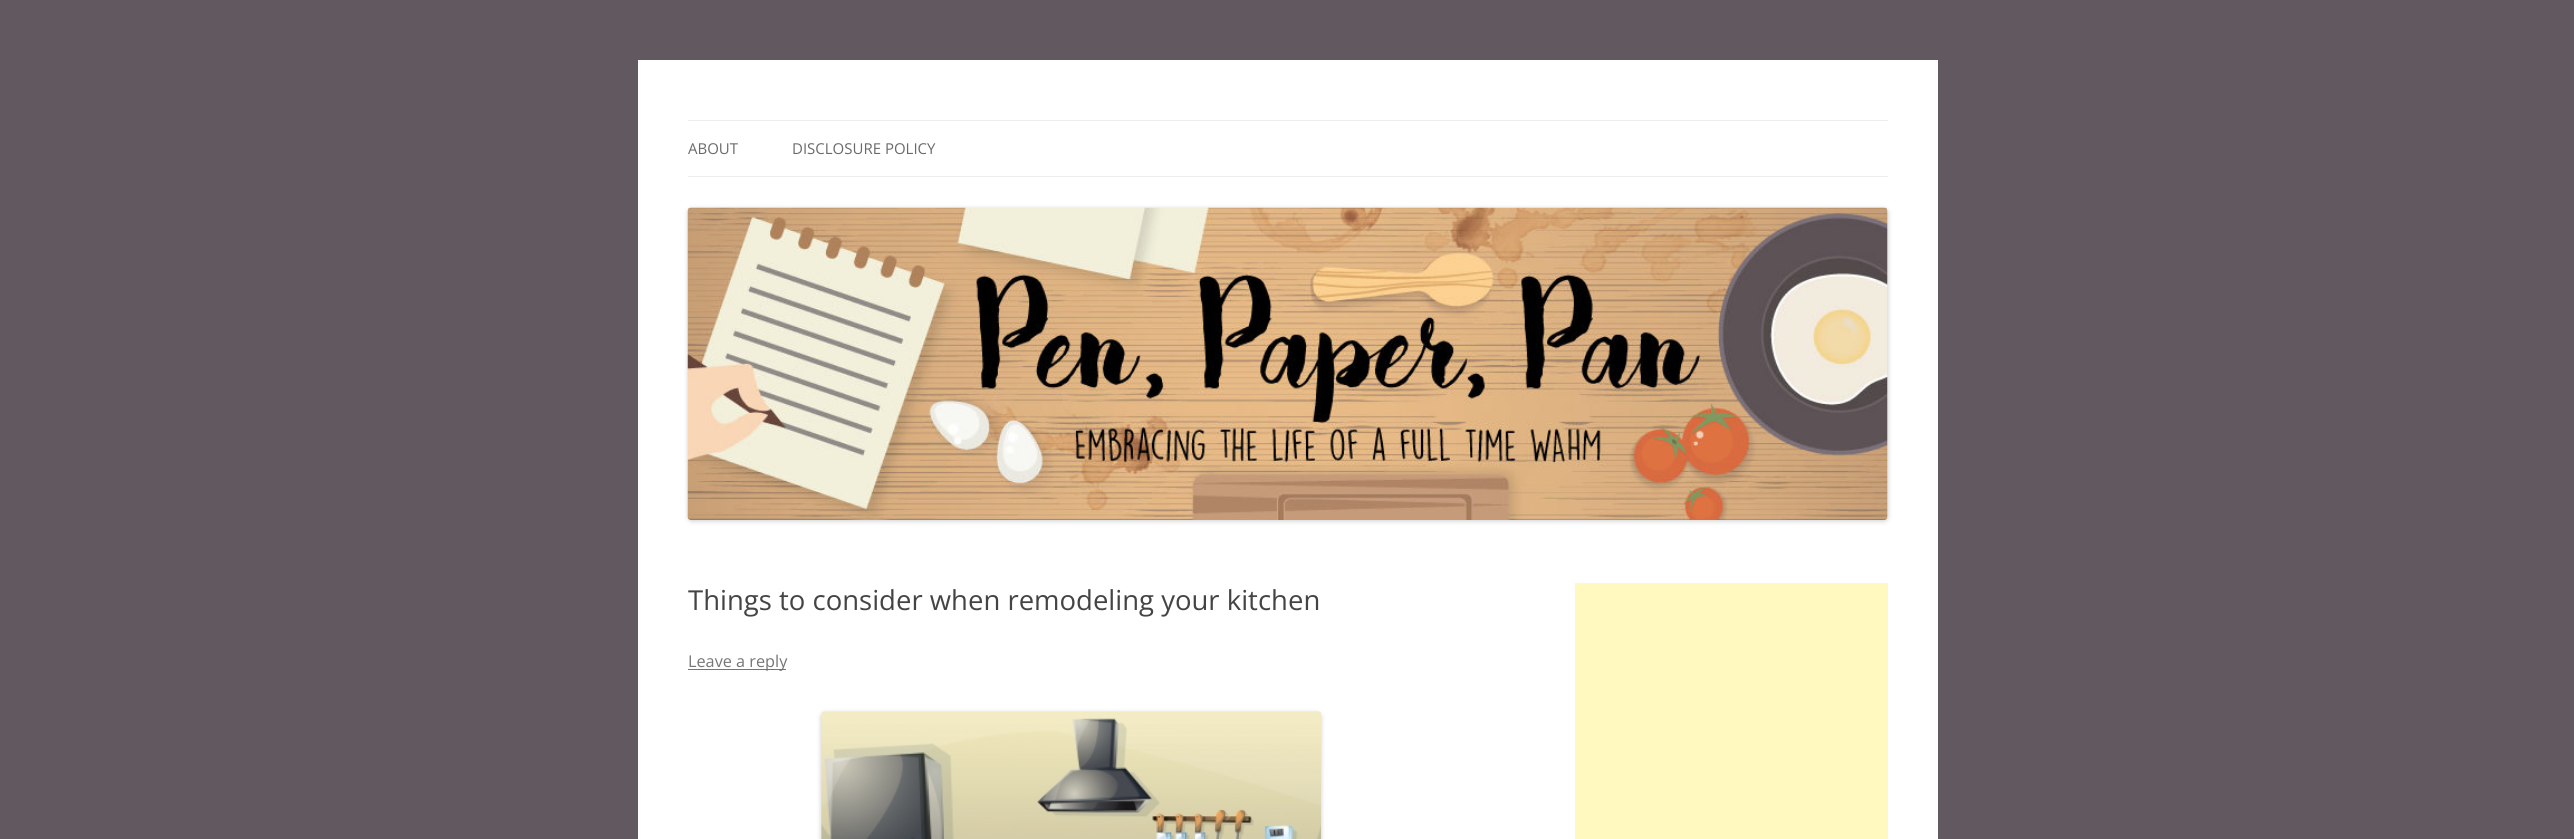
#include <cairo.h>
#include <math.h>
#include <stddef.h>

static cairo_t *c;
static void C(unsigned color){cairo_set_source_rgb(c, (color >> 16) / 255.0, (color >> 8 & 255) / 255.0, (color & 255) / 255.0);}
static void F(const char *family, double size, int italic, int bold){cairo_select_font_face(c, family, italic ? CAIRO_FONT_SLANT_ITALIC : CAIRO_FONT_SLANT_NORMAL,bold ? CAIRO_FONT_WEIGHT_BOLD : CAIRO_FONT_WEIGHT_NORMAL);cairo_set_font_size(c, size);}
static void T(double x, double y, const char *s){cairo_move_to(c, x, y);cairo_show_text(c, s);}
static void R(double x, double y, double w, double h){cairo_rectangle(c, x, y, w, h);cairo_fill(c);}
static void Q(double x, double y, double w, double h, double r){cairo_new_sub_path(c);cairo_arc(c, x + w - r, y + h - r, r, 0, M_PI / 2);cairo_arc(c, x + r, y + h - r, r, M_PI / 2, M_PI);cairo_arc(c, x + r, y + r, r, M_PI, 1.5 * M_PI);cairo_arc(c, x + w - r, y + r, r, 1.5 * M_PI, 2 * M_PI);cairo_close_path(c);}
static void S(double x, double y, double w, double h, double r, double blur, double alpha){cairo_push_group_with_content(c, CAIRO_CONTENT_ALPHA);cairo_set_operator(c, CAIRO_OPERATOR_SOURCE);for (int i = 15; i >= -15 && fmin(w, h) + blur * i / 3 > 0; i -= 2) {double e = blur * i / 6;cairo_set_source_rgba(c, 0, 0, 0, alpha * erfc((i - 1) / 8.5) / 2);Q(x - e, y - e, w + 2 * e, h + 2 * e, fmax(0, fmin(r + e + blur * .6, fmin(w, h) / 2 + e)));cairo_fill(c);}cairo_pattern_t *soft = cairo_pop_group(c);cairo_mask(c, soft);cairo_pattern_destroy(soft);}
static void I(const char *path, double x, double y, double w, double h){cairo_surface_t *image = cairo_image_surface_create_from_png(path);cairo_save(c);cairo_set_source_surface(c, image, x, y);cairo_rectangle(c, x, y, w, h);cairo_fill(c);cairo_restore(c);cairo_surface_destroy(image);}
int main(void) {
cairo_surface_t *surface = cairo_image_surface_create(CAIRO_FORMAT_RGB24, 2574, 839);
c = cairo_create(surface);
cairo_font_options_t *options = cairo_font_options_create();
cairo_font_options_set_hint_metrics(options, CAIRO_HINT_METRICS_OFF);
cairo_font_options_set_hint_style(options, CAIRO_HINT_STYLE_NONE);
cairo_set_font_options(c, options);
cairo_set_miter_limit(c, 4);
C(0x62585f);
cairo_paint(c);
C(0xffffff);
R(638,60,1300,779);
C(0xededed);
R(688,120,1200,1);
R(688,176,1200,1);
F("Open Sans",15,0,0);
C(0x6a6a6a);
T(688,154,"ABOUT");
T(792,154,"DISCLOSURE POLICY");
C(0x000000);
S(688,209,1200,312,4,2.5,.2);
I("1.png",687,207,1201,313);
F("Open Sans",27.5,0,0);
C(0x444444);
T(688,610,"Things to consider when remodeling your kitchen");
C(0x757575);
R(688,669,98,1);
F("Open Sans",16.25,0,0);
T(688,667,"Leave a reply");
C(0x000000);
S(821,713,500,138,4,2.5,.2);
I("2.png",821,711,501,128);
C(0xfff9c0);
R(1575,583,313,256);
cairo_surface_write_to_png(surface, "o.png");
cairo_font_options_destroy(options);
cairo_destroy(c);
cairo_surface_destroy(surface);
return 0;
}
